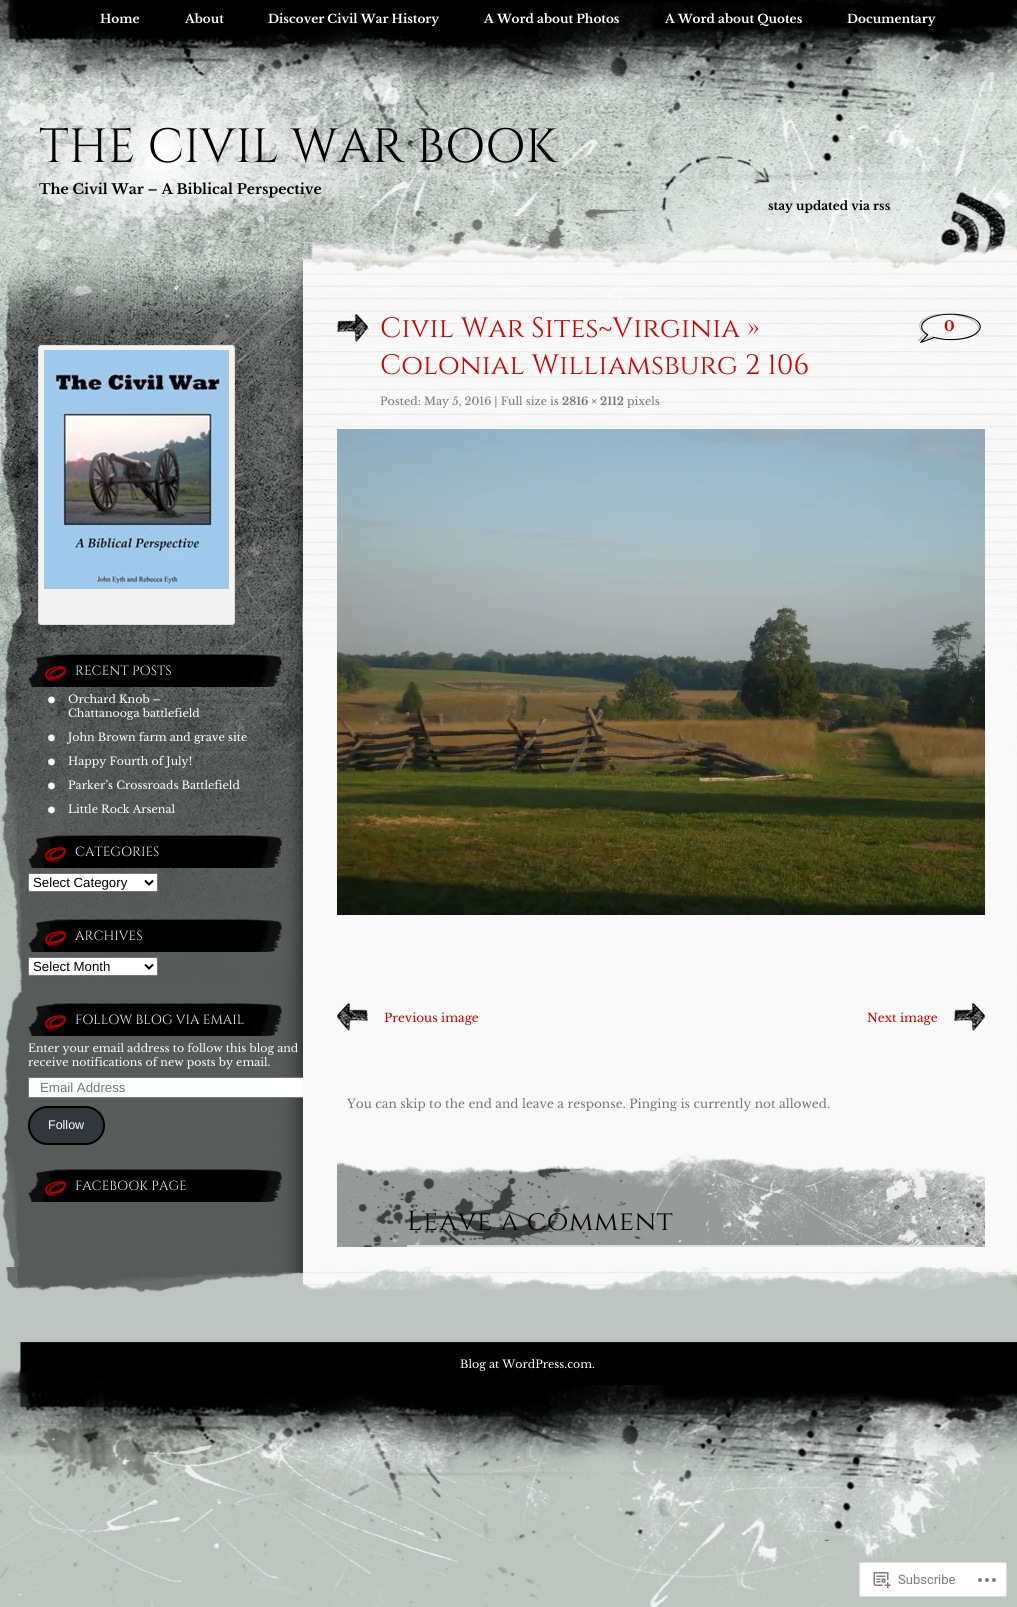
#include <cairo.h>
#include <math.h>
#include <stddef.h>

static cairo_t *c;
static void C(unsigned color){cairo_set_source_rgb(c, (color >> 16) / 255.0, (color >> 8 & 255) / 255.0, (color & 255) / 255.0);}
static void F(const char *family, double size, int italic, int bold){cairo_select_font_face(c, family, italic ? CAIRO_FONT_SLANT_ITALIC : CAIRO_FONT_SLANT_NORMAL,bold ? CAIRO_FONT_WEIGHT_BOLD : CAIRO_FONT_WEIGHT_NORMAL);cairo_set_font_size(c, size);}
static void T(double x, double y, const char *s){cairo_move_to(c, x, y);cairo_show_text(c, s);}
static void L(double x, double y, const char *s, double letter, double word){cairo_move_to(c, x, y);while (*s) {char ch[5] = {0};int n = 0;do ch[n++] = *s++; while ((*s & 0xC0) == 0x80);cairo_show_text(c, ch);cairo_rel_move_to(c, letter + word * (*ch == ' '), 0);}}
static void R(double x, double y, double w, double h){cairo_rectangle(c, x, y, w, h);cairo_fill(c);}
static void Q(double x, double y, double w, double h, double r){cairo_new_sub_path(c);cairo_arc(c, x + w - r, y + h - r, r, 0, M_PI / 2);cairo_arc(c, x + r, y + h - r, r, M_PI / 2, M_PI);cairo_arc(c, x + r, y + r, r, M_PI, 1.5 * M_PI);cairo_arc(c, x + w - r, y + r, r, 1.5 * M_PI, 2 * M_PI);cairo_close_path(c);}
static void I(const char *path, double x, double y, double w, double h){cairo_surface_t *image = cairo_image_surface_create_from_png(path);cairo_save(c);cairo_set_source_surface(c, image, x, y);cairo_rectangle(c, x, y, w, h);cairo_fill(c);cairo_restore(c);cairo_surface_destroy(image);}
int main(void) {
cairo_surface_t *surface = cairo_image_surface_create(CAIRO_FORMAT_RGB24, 1017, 1607);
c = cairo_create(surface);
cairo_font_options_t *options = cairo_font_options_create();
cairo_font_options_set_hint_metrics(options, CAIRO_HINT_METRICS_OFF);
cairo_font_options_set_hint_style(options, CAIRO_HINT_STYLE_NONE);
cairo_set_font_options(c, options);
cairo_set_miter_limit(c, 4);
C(0xffffff);
cairo_paint(c);
I("1.png",0,0,1017,260);
F("Libre Baskerville",12,0,1);
C(0xffffff);
T(100,23,"Home");
T(185,23,"About");
T(268,23,"Discover Civil War History");
T(484,23,"A Word about Photos");
T(665,23,"A Word about Quotes");
T(847,23,"Documentary");
F("Cinzel",48,0,0);
C(0x000000);
T(39,162,"THE CIVIL WAR BOOK");
F("Libre Baskerville",14,0,1);
T(39,194,"The Civil War – A Biblical Perspective");
F("Libre Baskerville",12,0,1);
T(768,210,"stay updated via rss");
I("2.png",0,756,1017,511);
I("3.png",0,260,303,720);
C(0xf3f3f3);
Q(38.5,345.5,196,279,2.5);
cairo_fill_preserve(c);
C(0xdddddd);
cairo_set_line_width(c,1);
cairo_stroke(c);
I("4.png",44,350,185,239);
I("5.png",28,654,255,33);
F("Cinzel",13.25,0,0);
C(0xeef0eb);
T(75,675,"RECENT POSTS");
I("6.png",48,696,7,8);
F("Libre Baskerville",11,0,0);
C(0xffffff);
T(68,703,"Orchard Knob –");
T(68,717,"Chattanooga battlefield");
I("7.png",48,734,7,8);
T(68,741,"John Brown farm and grave site");
I("8.png",48,758,7,8);
T(68,765,"Happy Fourth of July!");
I("9.png",48,782,7,8);
T(68,789,"Parker’s Crossroads Battlefield");
I("10.png",48,806,7,8);
T(68,813,"Little Rock Arsenal");
I("11.png",28,835,254,33);
F("Cinzel",13.25,0,0);
C(0xeef0eb);
T(75,856,"CATEGORIES");
C(0xffffff);
Q(28.5,873.5,129,18,1.5);
cairo_fill_preserve(c);
C(0x767676);
cairo_stroke(c);
cairo_new_path(c);
cairo_move_to(c,145,880.5);
cairo_line_to(c,149,884.5);
cairo_line_to(c,153,880.5);
C(0x000000);
cairo_set_line_width(c,2);
cairo_stroke(c);
F("Liberation Sans",13.25,0,0);
T(33,887,"Select Category");
I("12.png",28,919,255,33);
F("Cinzel",13.25,0,0);
C(0xeef0eb);
T(75,940,"ARCHIVES");
C(0xffffff);
Q(28.5,957.5,129,18,1.5);
cairo_fill_preserve(c);
C(0x767676);
cairo_set_line_width(c,1);
cairo_stroke(c);
cairo_new_path(c);
cairo_move_to(c,145,964.5);
cairo_line_to(c,149,968.5);
cairo_line_to(c,153,964.5);
C(0x000000);
cairo_set_line_width(c,2);
cairo_stroke(c);
F("Liberation Sans",13.25,0,0);
T(33,971,"Select Month");
I("13.png",28,1003,254,33);
F("Cinzel",13.25,0,0);
C(0xeef0eb);
T(75,1024,"FOLLOW BLOG VIA EMAIL");
F("Libre Baskerville",11,0,0);
C(0xffffff);
T(28,1052,"Enter your email address to follow this blog and");
T(28,1066,"receive notifications of new posts by email.");
cairo_new_path(c);
cairo_move_to(c,30,1077);
cairo_line_to(c,303,1077);
cairo_line_to(c,303,1098);
cairo_line_to(c,30,1098);
cairo_curve_to(c,29,1098,28,1097,28,1096);
cairo_line_to(c,28,1079);
cairo_curve_to(c,28,1078,29,1077,30,1077);
cairo_close_path(c);
cairo_fill(c);
cairo_save(c);
cairo_rectangle(c,0,260,303,970);
cairo_clip(c);
Q(28.5,1077.5,284,20,1.5);
C(0x767676);
cairo_set_line_width(c,1);
cairo_stroke(c);
cairo_restore(c);
F("Liberation Sans",13.25,0,0);
C(0x747775);
T(40,1092,"Email Address");
C(0x32373c);
Q(29,1107,75,37,18.5);
cairo_fill_preserve(c);
C(0x000000);
cairo_stroke(c);
F("Liberation Sans",12.5,0,0);
C(0xffffff);
T(48,1129,"Follow");
I("14.png",28,1169,254,33);
F("Cinzel",13.25,0,0);
C(0xeef0eb);
T(75,1190,"FACEBOOK PAGE");
I("15.png",303,260,714,496);
I("16.png",337,314,32,28);
F("Cinzel",28,0,0);
C(0xcc0000);
T(380,337,"Civil War Sites~Virginia »");
T(380,374,"Colonial Williamsburg 2 106");
F("Libre Baskerville",11,0,0);
C(0x747775);
T(380,405,"Posted: May 5, 2016 | Full size is");
F("Libre Baskerville",11,0,1);
T(562,405,"2816 × 2112");
F("Libre Baskerville",11,0,0);
T(627,405,"pixels");
I("17.png",917,313,64,30);
F("Libre Baskerville",14,0,1);
C(0xcc0000);
T(944,331,"0");
I("18.png",337,429,648,486);
I("19.png",337,1003,31,28);
F("Libre Baskerville",12,0,0);
T(384,1022,"Previous image");
I("20.png",954,1003,31,28);
T(867,1022,"Next image");
F("Libre Baskerville",12.1,0,0);
C(0x747775);
T(347,1108,"You can skip to the end and leave a response. Pinging is currently not allowed.");
I("21.png",337,1154,648,93);
F("Cinzel",27.5,0,0);
C(0x000000);
L(407,1230,"Leave a comment",.75,0);
C(0xdcdcde);
R(407,1245,568,2);
C(0xbcc5c1);
R(0,1267,1017,75);
I("22.png",5,1267,1012,26);
I("23.png",0,1342,1017,265);
F("Libre Baskerville",11,0,0);
C(0xffffff);
T(460,1368,"Blog at WordPress.com.");
cairo_set_source_rgba(c,1,1,1,0.98);
Q(859,1562,148,35,3);
cairo_fill(c);
Q(859.5,1562.5,147,34,2.5);
cairo_set_source_rgba(c,0.863,0.863,0.871,0.98);
cairo_set_line_width(c,1);
cairo_stroke(c);
I("24.png",873,1572,18,17);
F("Roboto",13,0,0);
C(0x797d83);
T(898,1584,"Subscribe");
I("25.png",978,1578,18,4);
cairo_surface_write_to_png(surface, "o.png");
cairo_font_options_destroy(options);
cairo_destroy(c);
cairo_surface_destroy(surface);
return 0;
}
